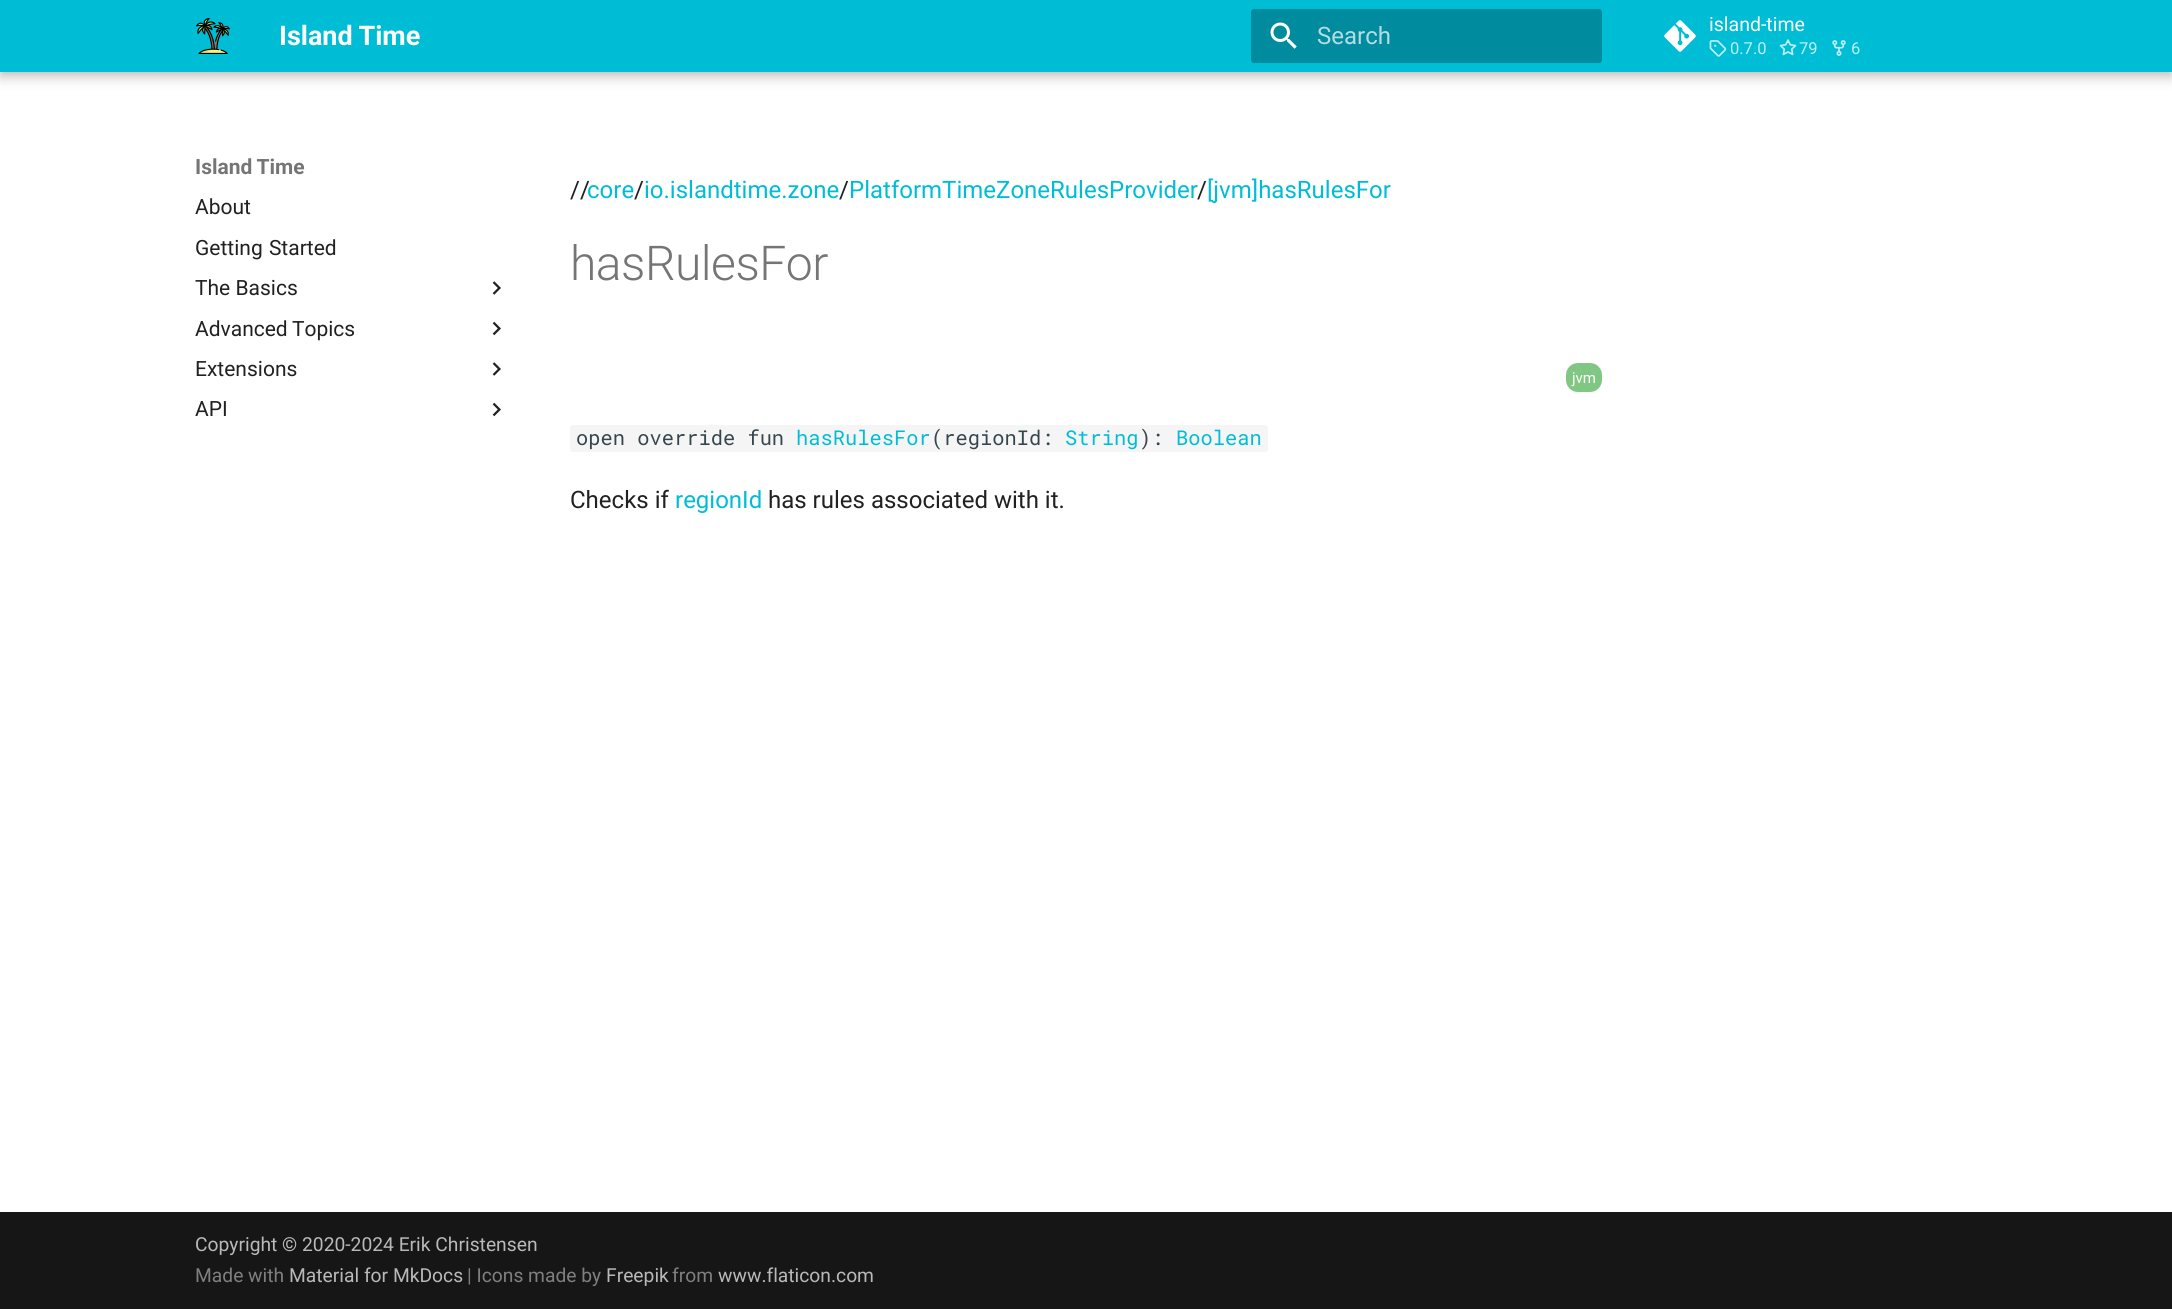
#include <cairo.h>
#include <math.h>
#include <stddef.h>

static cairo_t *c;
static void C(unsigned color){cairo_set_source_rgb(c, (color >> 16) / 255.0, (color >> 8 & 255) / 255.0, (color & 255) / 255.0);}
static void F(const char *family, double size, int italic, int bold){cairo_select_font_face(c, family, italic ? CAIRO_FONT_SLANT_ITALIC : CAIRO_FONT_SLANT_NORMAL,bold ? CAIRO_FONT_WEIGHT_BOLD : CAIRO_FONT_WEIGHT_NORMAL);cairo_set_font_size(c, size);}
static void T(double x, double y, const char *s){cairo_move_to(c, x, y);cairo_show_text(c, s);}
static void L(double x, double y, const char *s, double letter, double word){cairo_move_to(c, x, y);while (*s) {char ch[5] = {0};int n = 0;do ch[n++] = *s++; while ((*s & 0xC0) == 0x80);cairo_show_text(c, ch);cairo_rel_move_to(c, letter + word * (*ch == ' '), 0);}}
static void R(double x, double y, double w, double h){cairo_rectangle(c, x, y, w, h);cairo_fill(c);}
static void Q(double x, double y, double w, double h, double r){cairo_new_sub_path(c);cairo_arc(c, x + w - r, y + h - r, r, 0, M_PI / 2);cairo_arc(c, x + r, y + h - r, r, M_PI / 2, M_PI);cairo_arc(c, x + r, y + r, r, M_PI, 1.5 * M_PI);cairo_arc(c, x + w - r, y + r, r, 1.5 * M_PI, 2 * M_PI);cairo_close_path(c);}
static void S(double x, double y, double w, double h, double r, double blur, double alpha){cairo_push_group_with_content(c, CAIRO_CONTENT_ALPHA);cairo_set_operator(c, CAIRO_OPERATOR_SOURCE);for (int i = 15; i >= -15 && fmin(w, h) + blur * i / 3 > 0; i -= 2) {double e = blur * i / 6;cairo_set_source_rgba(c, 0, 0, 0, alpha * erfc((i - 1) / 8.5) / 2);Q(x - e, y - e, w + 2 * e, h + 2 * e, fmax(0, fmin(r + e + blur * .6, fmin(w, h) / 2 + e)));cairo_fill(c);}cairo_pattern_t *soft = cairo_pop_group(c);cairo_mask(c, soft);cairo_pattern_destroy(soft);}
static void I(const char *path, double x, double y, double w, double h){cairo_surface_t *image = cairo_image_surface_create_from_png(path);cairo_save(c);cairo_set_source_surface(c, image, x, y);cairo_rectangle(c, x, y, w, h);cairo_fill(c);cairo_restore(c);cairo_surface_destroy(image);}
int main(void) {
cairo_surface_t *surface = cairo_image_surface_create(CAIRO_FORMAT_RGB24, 2172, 1309);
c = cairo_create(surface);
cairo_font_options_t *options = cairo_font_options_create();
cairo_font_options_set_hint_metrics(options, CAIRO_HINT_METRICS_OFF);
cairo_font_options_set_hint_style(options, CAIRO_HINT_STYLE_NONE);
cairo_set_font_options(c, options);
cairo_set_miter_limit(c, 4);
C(0xffffff);
cairo_paint(c);
C(0x000000);
S(0,6,2172,72,0,6,.2);
S(0,0,2172,72,0,3,.1);
C(0x00bdd6);
R(0,0,2172,72);
I("1.png",196,18,34,36);
F("Roboto",27,0,1);
C(0xffffff);
L(279,45,"Island Time",0,-1);
C(0x008c9e);
Q(1251,9,351,54,3);
cairo_fill(c);
I("2.png",1270,22,27,27);
F("Roboto",24,0,0);
C(0xb3dde2);
T(1317,44,"Search");
I("3.png",1664,20,32,32);
F("Roboto",19.5,0,0);
C(0xffffff);
T(1709,31,"island-time");
I("4.png",1709,40,18,17);
F("Roboto",16.5,0,0);
C(0xbfeff5);
T(1730,54,"0.7.0");
I("5.png",1779,39,18,17);
T(1799,54,"79");
I("6.png",1832,40,14,16);
T(1851,54,"6");
cairo_save(c);
cairo_rectangle(c,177,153,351,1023);
cairo_clip(c);
cairo_set_fill_rule(c,CAIRO_FILL_RULE_EVEN_ODD);
cairo_new_path(c);
cairo_move_to(c,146,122);
cairo_line_to(c,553,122);
cairo_line_to(c,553,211);
cairo_line_to(c,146,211);
cairo_close_path(c);
cairo_move_to(c,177,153);
cairo_line_to(c,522,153);
cairo_line_to(c,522,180);
cairo_line_to(c,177,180);
cairo_close_path(c);
cairo_clip(c);
C(0xffffff);
S(165,141,369,51,0,6,1);
cairo_restore(c);
F("Roboto",21,0,1);
C(0x757575);
L(195,174,"Island Time",0,-1);
F("Roboto",21,0,0);
C(0x212121);
T(195,214,"About");
L(195,255,"Getting Started",0,1);
T(195,295,"The Basics");
I("7.png",492,281,9,14);
L(195,336,"Advanced Topics",0,-1);
I("8.png",492,321,9,15);
T(195,376,"Extensions");
I("7.png",492,362,9,14);
T(195,416,"API");
I("8.png",492,402,9,15);
F("Roboto",24,0,0);
T(570,198,"//");
C(0x00bdd6);
T(587,198,"core");
C(0x212121);
T(634,198,"/");
C(0x00bdd6);
T(644,198,"io.islandtime.zone");
C(0x212121);
T(839,198,"/");
C(0x00bdd6);
T(849,198,"PlatformTimeZoneRulesProvider");
C(0x212121);
T(1197,198,"/");
C(0x00bdd6);
T(1207,198,"[jvm]hasRulesFor");
F("Roboto Light",48,0,0);
C(0x757575);
L(570,280,"hasRulesFor",-.5,0);
C(0x81c784);
Q(1566,363,36,29,12);
cairo_fill(c);
F("Roboto",15,0,0);
C(0xffffff);
T(1572,383,"jvm");
C(0xf5f5f5);
cairo_new_path(c);
cairo_move_to(c,573,425);
cairo_line_to(c,797,425);
cairo_line_to(c,797,452);
cairo_line_to(c,573,452);
cairo_curve_to(c,571.5,452,570,450.5,570,449);
cairo_line_to(c,570,428);
cairo_curve_to(c,570,426.5,571.5,425,573,425);
cairo_close_path(c);
cairo_fill(c);
F("Roboto Mono",20.4,0,0);
C(0x36464e);
T(576,445,"open override fun");
C(0xf5f5f5);
R(797,425,379,27);
C(0x00bdd6);
T(796,445,"hasRulesFor");
C(0x36464e);
T(931,445,"(regionId:");
C(0x00bdd6);
T(1065,445,"String");
C(0x36464e);
T(1139,445,"):");
C(0xf5f5f5);
cairo_new_path(c);
cairo_move_to(c,1176,425);
cairo_line_to(c,1265,425);
cairo_curve_to(c,1266.5,425,1268,426.5,1268,428);
cairo_line_to(c,1268,449);
cairo_curve_to(c,1268,450.5,1266.5,452,1265,452);
cairo_line_to(c,1176,452);
cairo_close_path(c);
cairo_fill(c);
C(0x00bdd6);
T(1176,445,"Boolean");
F("Roboto",24,0,0);
C(0x212121);
T(570,508,"Checks if");
C(0x00bdd6);
T(675,508,"regionId");
C(0x212121);
T(768,508,"has rules associated with it.");
C(0x161616);
R(0,1212,2172,97);
F("Roboto",19.25,0,0);
C(0xb9b9b9);
T(195,1251,"Copyright © 2020-2024 Erik Christensen");
C(0x7f7f7f);
T(195,1282,"Made with");
C(0xb9b9b9);
T(289,1282,"Material for MkDocs");
C(0x7f7f7f);
T(467,1282,"| Icons made by");
C(0xb9b9b9);
T(606,1282,"Freepik");
C(0x7f7f7f);
T(672,1282,"from");
C(0xb9b9b9);
T(718,1282,"www.flaticon.com");
cairo_surface_write_to_png(surface, "o.png");
cairo_font_options_destroy(options);
cairo_destroy(c);
cairo_surface_destroy(surface);
return 0;
}
